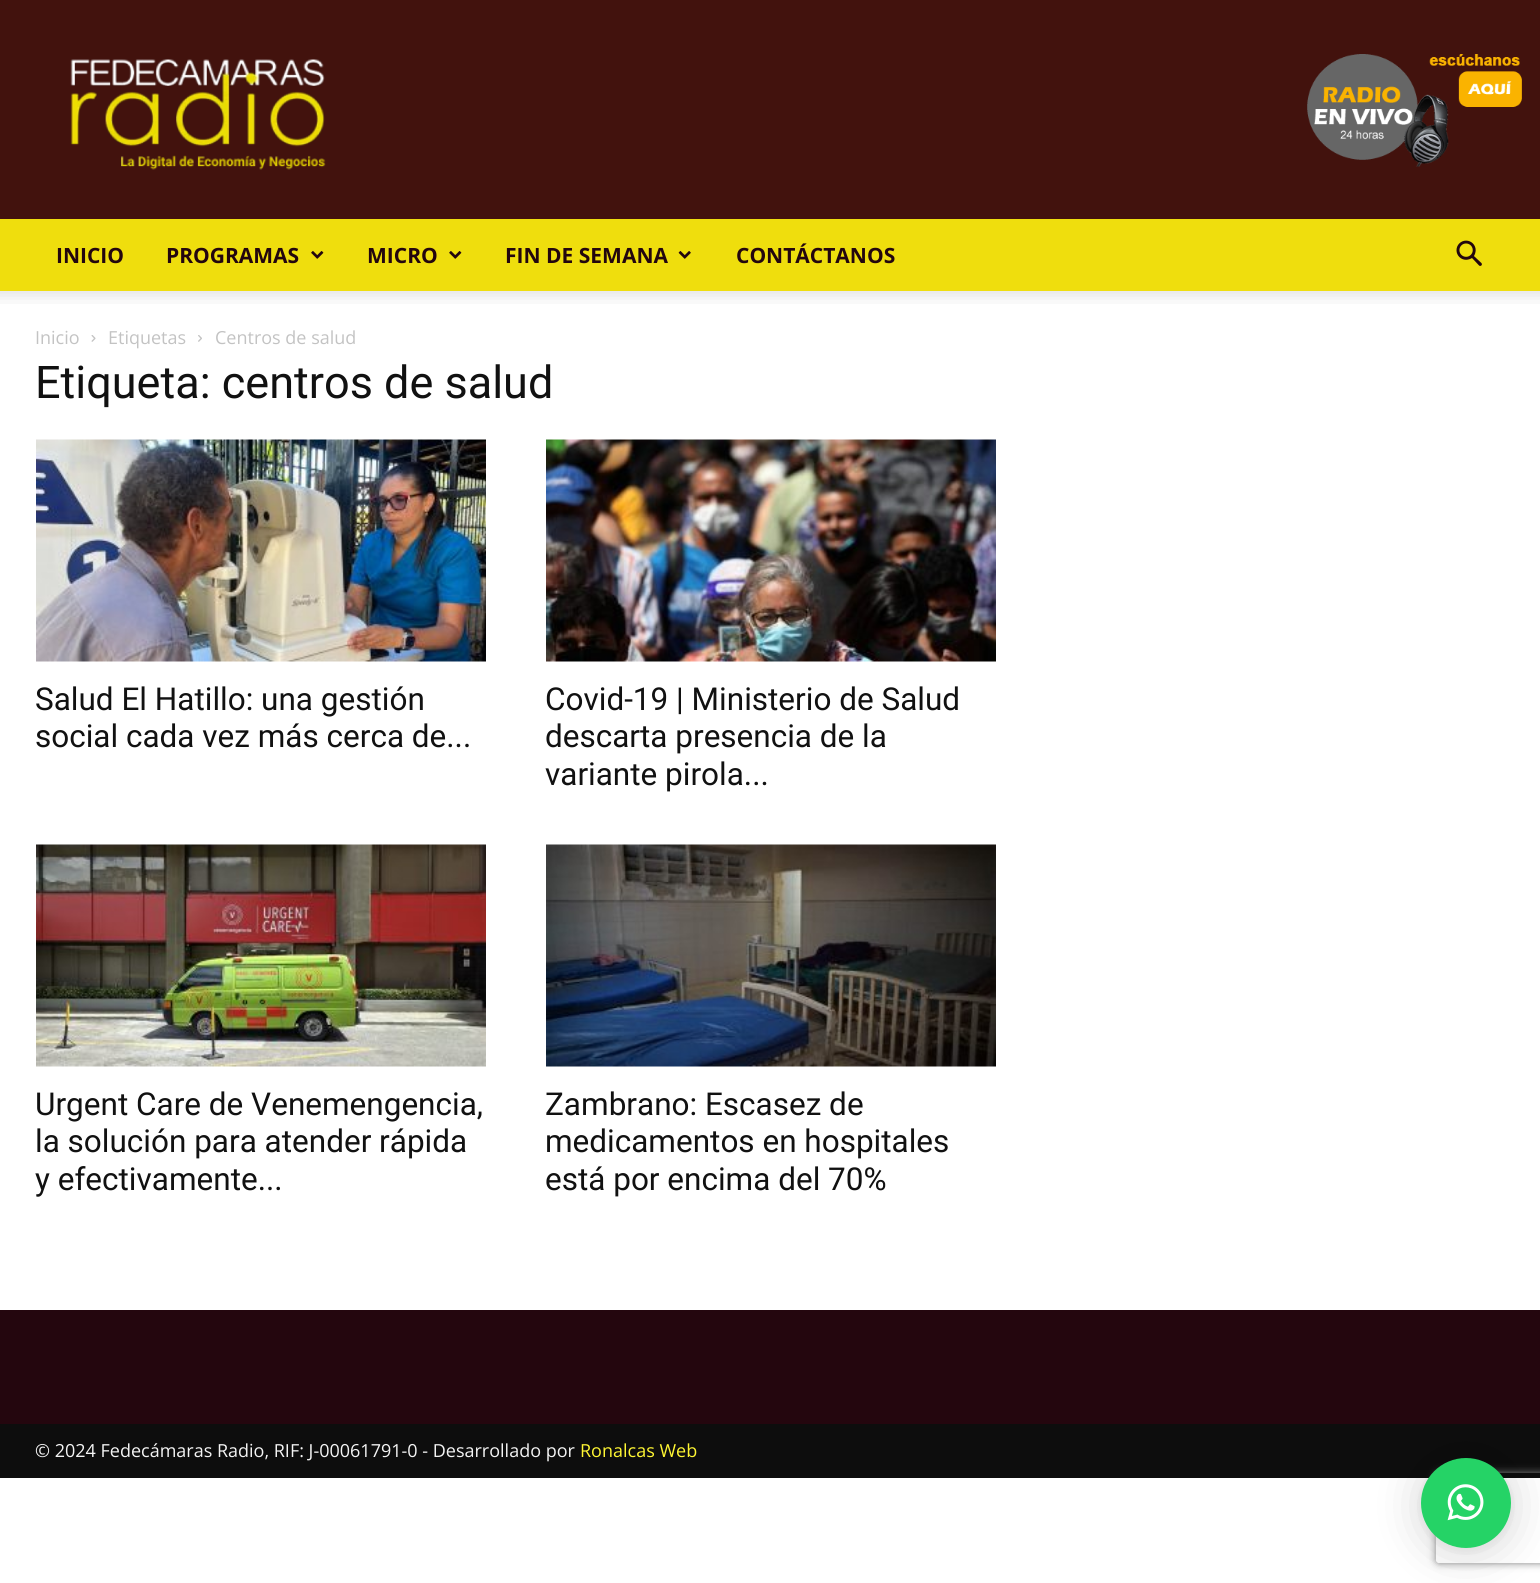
#include <cairo.h>
#include <math.h>
#include <stddef.h>

static cairo_t *c;
static void C(unsigned color){cairo_set_source_rgb(c, (color >> 16) / 255.0, (color >> 8 & 255) / 255.0, (color & 255) / 255.0);}
static void F(const char *family, double size, int italic, int bold){cairo_select_font_face(c, family, italic ? CAIRO_FONT_SLANT_ITALIC : CAIRO_FONT_SLANT_NORMAL,bold ? CAIRO_FONT_WEIGHT_BOLD : CAIRO_FONT_WEIGHT_NORMAL);cairo_set_font_size(c, size);}
static void T(double x, double y, const char *s){cairo_move_to(c, x, y);cairo_show_text(c, s);}
static void R(double x, double y, double w, double h){cairo_rectangle(c, x, y, w, h);cairo_fill(c);}
static void Q(double x, double y, double w, double h, double r){cairo_new_sub_path(c);cairo_arc(c, x + w - r, y + h - r, r, 0, M_PI / 2);cairo_arc(c, x + r, y + h - r, r, M_PI / 2, M_PI);cairo_arc(c, x + r, y + r, r, M_PI, 1.5 * M_PI);cairo_arc(c, x + w - r, y + r, r, 1.5 * M_PI, 2 * M_PI);cairo_close_path(c);}
static void S(double x, double y, double w, double h, double r, double blur, double alpha){cairo_push_group_with_content(c, CAIRO_CONTENT_ALPHA);cairo_set_operator(c, CAIRO_OPERATOR_SOURCE);for (int i = 15; i >= -15 && fmin(w, h) + blur * i / 3 > 0; i -= 2) {double e = blur * i / 6;cairo_set_source_rgba(c, 0, 0, 0, alpha * erfc((i - 1) / 8.5) / 2);Q(x - e, y - e, w + 2 * e, h + 2 * e, fmax(0, fmin(r + e + blur * .6, fmin(w, h) / 2 + e)));cairo_fill(c);}cairo_pattern_t *soft = cairo_pop_group(c);cairo_mask(c, soft);cairo_pattern_destroy(soft);}
static void I(const char *path, double x, double y, double w, double h){cairo_surface_t *image = cairo_image_surface_create_from_png(path);cairo_save(c);cairo_set_source_surface(c, image, x, y);cairo_rectangle(c, x, y, w, h);cairo_fill(c);cairo_restore(c);cairo_surface_destroy(image);}
int main(void) {
cairo_surface_t *surface = cairo_image_surface_create(CAIRO_FORMAT_RGB24, 1540, 1583);
c = cairo_create(surface);
cairo_font_options_t *options = cairo_font_options_create();
cairo_font_options_set_hint_metrics(options, CAIRO_HINT_METRICS_OFF);
cairo_font_options_set_hint_style(options, CAIRO_HINT_STYLE_NONE);
cairo_set_font_options(c, options);
cairo_set_miter_limit(c, 4);
C(0xffffff);
cairo_paint(c);
C(0x42120d);
R(0,0,1540,219);
I("1.png",70,59,256,111);
I("2.png",1307,54,215,113);
C(0xefde0d);
R(0,219,1540,72);
F("Open Sans",21,0,1);
C(0x23060e);
T(56,263,"INICIO");
T(166,263,"PROGRAMAS");
I("3.png",311,251,13,8);
T(367,263,"MICRO");
I("3.png",449,251,13,8);
T(505,263,"FIN DE SEMANA");
I("4.png",678,251,13,8);
T(736,263,"CONTÁCTANOS");
I("5.png",1456,240,26,26);
I("6.png",0,291,1540,13);
F("Open Sans",18,0,0);
C(0xc3c3c3);
T(35,344,"Inicio");
I("7.png",91,335,5,7);
T(108,344,"Etiquetas");
I("8.png",198,335,4,7);
T(215,344,"Centros de salud");
F("Roboto",45,0,0);
C(0x111111);
T(35,398,"Etiqueta: centros de salud");
I("9.png",36,439,450,223);
F("Roboto",31.5,0,0);
T(35,710,"Salud El Hatillo: una gestión");
T(35,747,"social cada vez más cerca de...");
I("10.png",546,439,450,223);
T(545,710,"Covid-19 | Ministerio de Salud");
T(545,747,"descarta presencia de la");
T(545,785,"variante pirola...");
I("11.png",36,844,450,223);
T(35,1115,"Urgent Care de Venemengencia,");
T(35,1152,"la solución para atender rápida");
T(35,1190,"y efectivamente...");
I("12.png",546,844,450,223);
T(545,1115,"Zambrano: Escasez de");
T(545,1152,"medicamentos en hospitales");
T(545,1190,"está por encima del 70%");
C(0x24060e);
R(0,1310,1540,114);
C(0x0d0d0d);
R(0,1424,1540,54);
F("Open Sans",18,0,0);
C(0xf4f4f4);
T(35,1457,"© 2024 Fedecámaras Radio, RIF: J-00061791-0 - Desarrollado por");
C(0xfff633);
T(580,1457,"Ronalcas Web");
C(0x000000);
S(1421,1461,90,90,45,24,.16);
S(1421,1460,90,90,45,4.5,.06);
cairo_save(c);
cairo_set_fill_rule(c,CAIRO_FILL_RULE_EVEN_ODD);
cairo_new_path(c);
cairo_move_to(c,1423,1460);
cairo_line_to(c,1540,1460);
cairo_line_to(c,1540,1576);
cairo_line_to(c,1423,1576);
cairo_close_path(c);
cairo_move_to(c,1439,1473);
cairo_line_to(c,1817,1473);
cairo_curve_to(c,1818.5,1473,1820,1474.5,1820,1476);
cairo_line_to(c,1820,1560);
cairo_curve_to(c,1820,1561.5,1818.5,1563,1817,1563);
cairo_line_to(c,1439,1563);
cairo_curve_to(c,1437.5,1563,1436,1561.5,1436,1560);
cairo_line_to(c,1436,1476);
cairo_curve_to(c,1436,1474.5,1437.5,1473,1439,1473);
cairo_close_path(c);
cairo_clip(c);
C(0x808080);
S(1436,1473,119,90,3,4,1);
cairo_restore(c);
C(0x25d366);
cairo_arc(c,1466,1503,45,0,2 * M_PI);
cairo_fill(c);
I("13.png",1447,1484,37,37);
cairo_surface_write_to_png(surface, "o.png");
cairo_font_options_destroy(options);
cairo_destroy(c);
cairo_surface_destroy(surface);
return 0;
}
